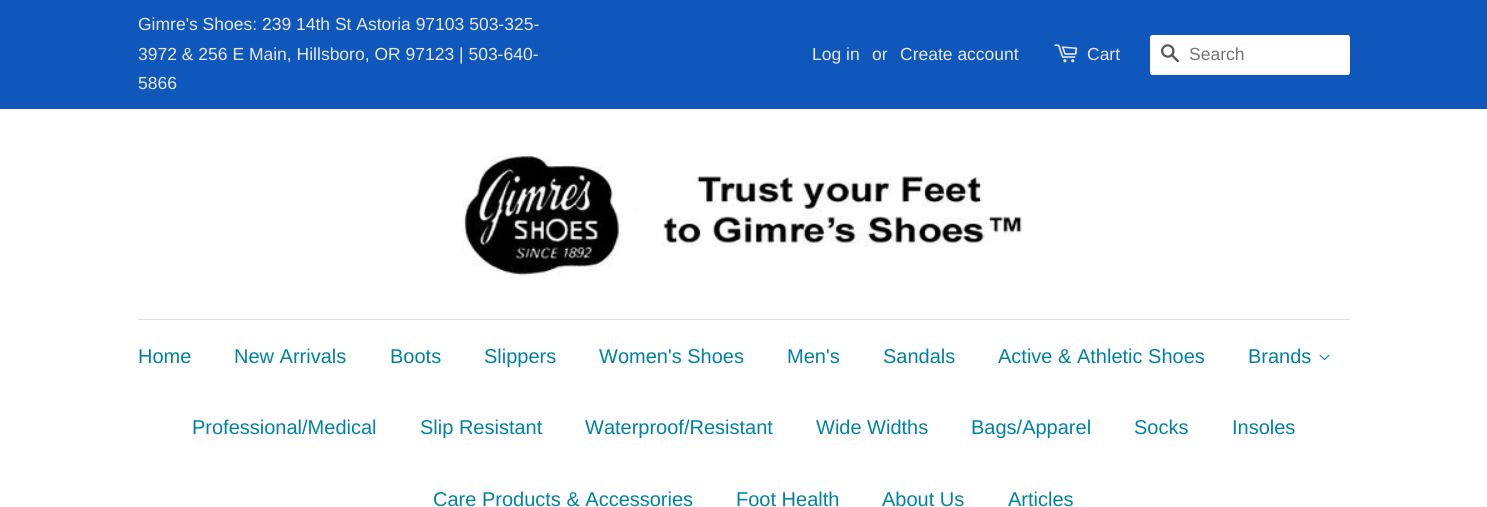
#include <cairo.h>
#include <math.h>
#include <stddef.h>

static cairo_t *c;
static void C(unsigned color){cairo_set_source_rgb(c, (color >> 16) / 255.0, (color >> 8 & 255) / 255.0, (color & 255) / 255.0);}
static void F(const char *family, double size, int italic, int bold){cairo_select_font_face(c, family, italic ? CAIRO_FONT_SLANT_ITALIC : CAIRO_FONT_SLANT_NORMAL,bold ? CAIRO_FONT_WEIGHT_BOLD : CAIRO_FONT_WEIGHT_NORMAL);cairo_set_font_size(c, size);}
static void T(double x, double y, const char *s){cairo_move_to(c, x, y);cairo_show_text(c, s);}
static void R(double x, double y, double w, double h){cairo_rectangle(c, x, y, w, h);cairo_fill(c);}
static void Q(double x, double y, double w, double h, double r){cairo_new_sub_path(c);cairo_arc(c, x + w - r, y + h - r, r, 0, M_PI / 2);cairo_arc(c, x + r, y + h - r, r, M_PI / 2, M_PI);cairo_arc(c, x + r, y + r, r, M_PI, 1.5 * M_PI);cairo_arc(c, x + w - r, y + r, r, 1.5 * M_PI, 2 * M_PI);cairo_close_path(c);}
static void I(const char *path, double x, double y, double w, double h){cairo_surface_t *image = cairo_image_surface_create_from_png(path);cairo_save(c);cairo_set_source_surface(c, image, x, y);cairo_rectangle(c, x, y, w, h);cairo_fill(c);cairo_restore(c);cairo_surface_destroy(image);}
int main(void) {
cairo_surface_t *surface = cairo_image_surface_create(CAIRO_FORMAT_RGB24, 1487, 507);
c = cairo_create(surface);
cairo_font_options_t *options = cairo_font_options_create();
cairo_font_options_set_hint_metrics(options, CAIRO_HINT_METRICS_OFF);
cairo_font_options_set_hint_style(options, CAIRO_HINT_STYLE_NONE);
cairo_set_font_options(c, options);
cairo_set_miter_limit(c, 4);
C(0xffffff);
cairo_paint(c);
C(0x1057bb);
R(0,0,1487,109);
F("Liberation Sans",17.5,0,0);
C(0xe8e9f0);
T(138,30,"Gimre's Shoes: 239 14th St Astoria 97103 503-325-");
T(138,60,"3972 & 256 E Main, Hillsboro, OR 97123 | 503-640-");
T(138,89,"5866");
T(812,60,"Log in");
T(872,60,"or");
T(900,60,"Create account");
I("1.png",1054,44,24,19);
T(1087,60,"Cart");
C(0xffffff);
Q(1150,35,200,40,2.5);
cairo_fill(c);
I("2.png",1161,44,18,19);
C(0x757575);
T(1189,60,"Search");
I("3.png",462,156,560,120);
C(0xdddddd);
R(138,319,1212,1);
F("Liberation Sans",20,0,0);
C(0x0081a3);
T(138,363,"Home");
T(234,363,"New Arrivals");
T(390,363,"Boots");
T(484,363,"Slippers");
T(599,363,"Women's Shoes");
T(787,363,"Men's");
T(883,363,"Sandals");
T(998,363,"Active & Athletic Shoes");
T(1248,363,"Brands");
I("4.png",1319,354,11,7);
T(192,434,"Professional/Medical");
T(420,434,"Slip Resistant");
T(585,434,"Waterproof/Resistant");
T(816,434,"Wide Widths");
T(971,434,"Bags/Apparel");
T(1134,434,"Socks");
T(1232,434,"Insoles");
T(433,506,"Care Products & Accessories");
T(736,506,"Foot Health");
T(882,506,"About Us");
T(1008,506,"Articles");
cairo_surface_write_to_png(surface, "o.png");
cairo_font_options_destroy(options);
cairo_destroy(c);
cairo_surface_destroy(surface);
return 0;
}
